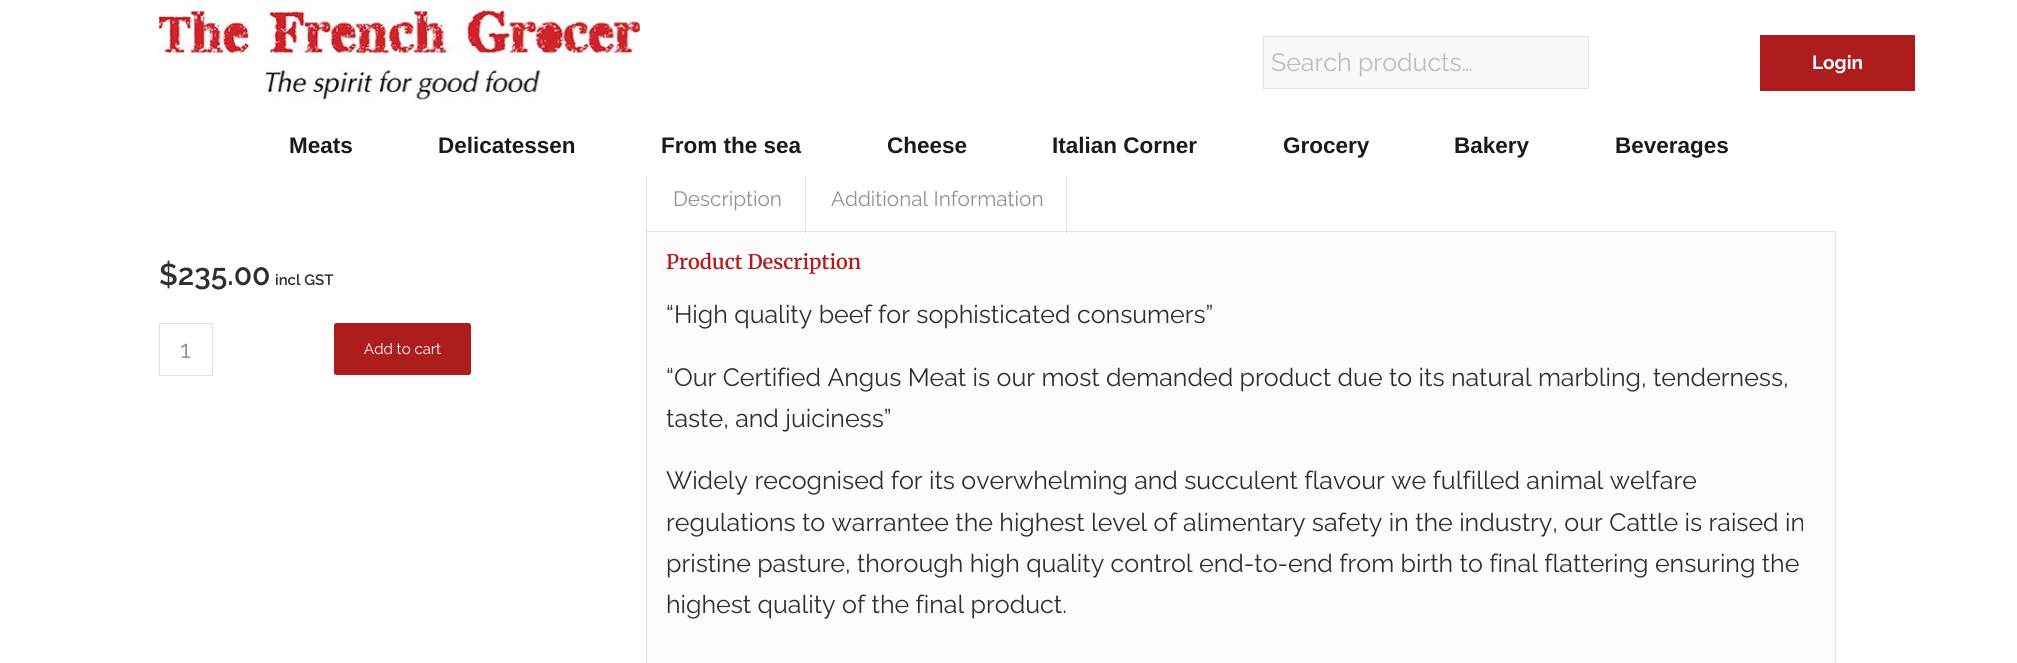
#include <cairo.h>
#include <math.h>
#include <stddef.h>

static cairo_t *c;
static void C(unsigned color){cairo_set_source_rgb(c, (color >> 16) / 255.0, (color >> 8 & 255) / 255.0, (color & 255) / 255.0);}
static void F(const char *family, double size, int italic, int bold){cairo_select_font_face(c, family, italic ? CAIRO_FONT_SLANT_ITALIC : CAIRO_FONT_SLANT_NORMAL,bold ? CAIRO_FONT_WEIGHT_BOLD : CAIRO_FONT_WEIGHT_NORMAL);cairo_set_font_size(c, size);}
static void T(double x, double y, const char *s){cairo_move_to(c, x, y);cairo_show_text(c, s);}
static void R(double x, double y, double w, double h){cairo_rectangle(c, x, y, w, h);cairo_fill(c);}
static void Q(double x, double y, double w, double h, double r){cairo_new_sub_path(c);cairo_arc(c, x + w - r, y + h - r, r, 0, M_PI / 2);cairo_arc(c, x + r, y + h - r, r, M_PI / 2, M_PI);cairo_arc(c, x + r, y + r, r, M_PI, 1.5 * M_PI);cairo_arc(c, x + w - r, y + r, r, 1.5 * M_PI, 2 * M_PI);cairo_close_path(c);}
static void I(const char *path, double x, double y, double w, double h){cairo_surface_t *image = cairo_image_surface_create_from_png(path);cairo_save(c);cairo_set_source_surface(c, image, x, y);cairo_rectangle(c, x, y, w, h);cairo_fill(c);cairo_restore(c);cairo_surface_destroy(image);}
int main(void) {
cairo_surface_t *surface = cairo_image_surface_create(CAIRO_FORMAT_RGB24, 2017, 663);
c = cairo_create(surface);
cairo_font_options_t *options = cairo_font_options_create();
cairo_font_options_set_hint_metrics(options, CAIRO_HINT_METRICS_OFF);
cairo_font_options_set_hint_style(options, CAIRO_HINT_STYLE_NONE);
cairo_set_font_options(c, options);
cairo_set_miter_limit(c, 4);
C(0xffffff);
cairo_paint(c);
I("1.png",159,0,481,105);
C(0xf8f8f8);
cairo_rectangle(c,1263.5,36.5,325,52);
cairo_fill_preserve(c);
C(0xe1e1e1);
cairo_set_line_width(c,1);
cairo_stroke(c);
F("Raleway",25,0,0);
C(0xbcbcbc);
T(1271,71,"Search products…");
C(0xae1d1d);
R(1760,35,155,56);
F("Raleway",19,0,1);
C(0xffffff);
T(1812,69,"Login");
F("Liberation Sans",22.5,0,1);
C(0x1a1a1a);
T(289,153,"Meats");
T(438,153,"Delicatessen");
T(661,153,"From the sea");
T(887,153,"Cheese");
T(1052,153,"Italian Corner");
T(1283,153,"Grocery");
T(1454,153,"Bakery");
T(1615,153,"Beverages");
C(0xfcfcfc);
cairo_rectangle(c,646.5,231.5,1189,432);
cairo_fill_preserve(c);
C(0xe1e1e1);
cairo_stroke(c);
R(646,168,1,65);
R(1066,168,1,65);
C(0xffffff);
R(646,168,421,8);
F("Raleway SemiBold",30,0,0);
C(0x302e2f);
T(159,285,"$235.00");
F("Raleway SemiBold",15,0,0);
T(275,285,"incl GST");
cairo_rectangle(c,159.5,323.5,53,52);
C(0xe1e1e1);
cairo_stroke(c);
F("Raleway",25,0,0);
C(0x919191);
T(180,358,"1");
C(0xae1d1d);
Q(334,323,137,52,2.5);
cairo_fill(c);
F("Raleway",15,0,0);
C(0xffffff);
T(364,354,"Add to cart");
C(0xe1e1e1);
R(805,176,1,57);
F("Raleway",20.75,0,0);
C(0x919191);
T(673,206,"Description");
T(831,206,"Additional Information");
F("Merriweather SemiBold",20,0,0);
C(0xaf1d1e);
T(666,269,"Product Description");
F("Raleway",25,0,0);
C(0x302e2f);
T(666,323,"“High quality beef for sophisticated consumers”");
T(666,386,"“Our Certified Angus Meat is our most demanded product due to its natural marbling, tenderness,");
T(666,427,"taste, and juiciness”");
T(666,489,"Widely recognised for its overwhelming and succulent flavour we fulfilled animal welfare");
T(666,531,"regulations to warrantee the highest level of alimentary safety in the industry, our Cattle is raised in");
T(666,572,"pristine pasture, thorough high quality control end-to-end from birth to final flattering ensuring the");
T(666,613,"highest quality of the final product.");
cairo_surface_write_to_png(surface, "o.png");
cairo_font_options_destroy(options);
cairo_destroy(c);
cairo_surface_destroy(surface);
return 0;
}
